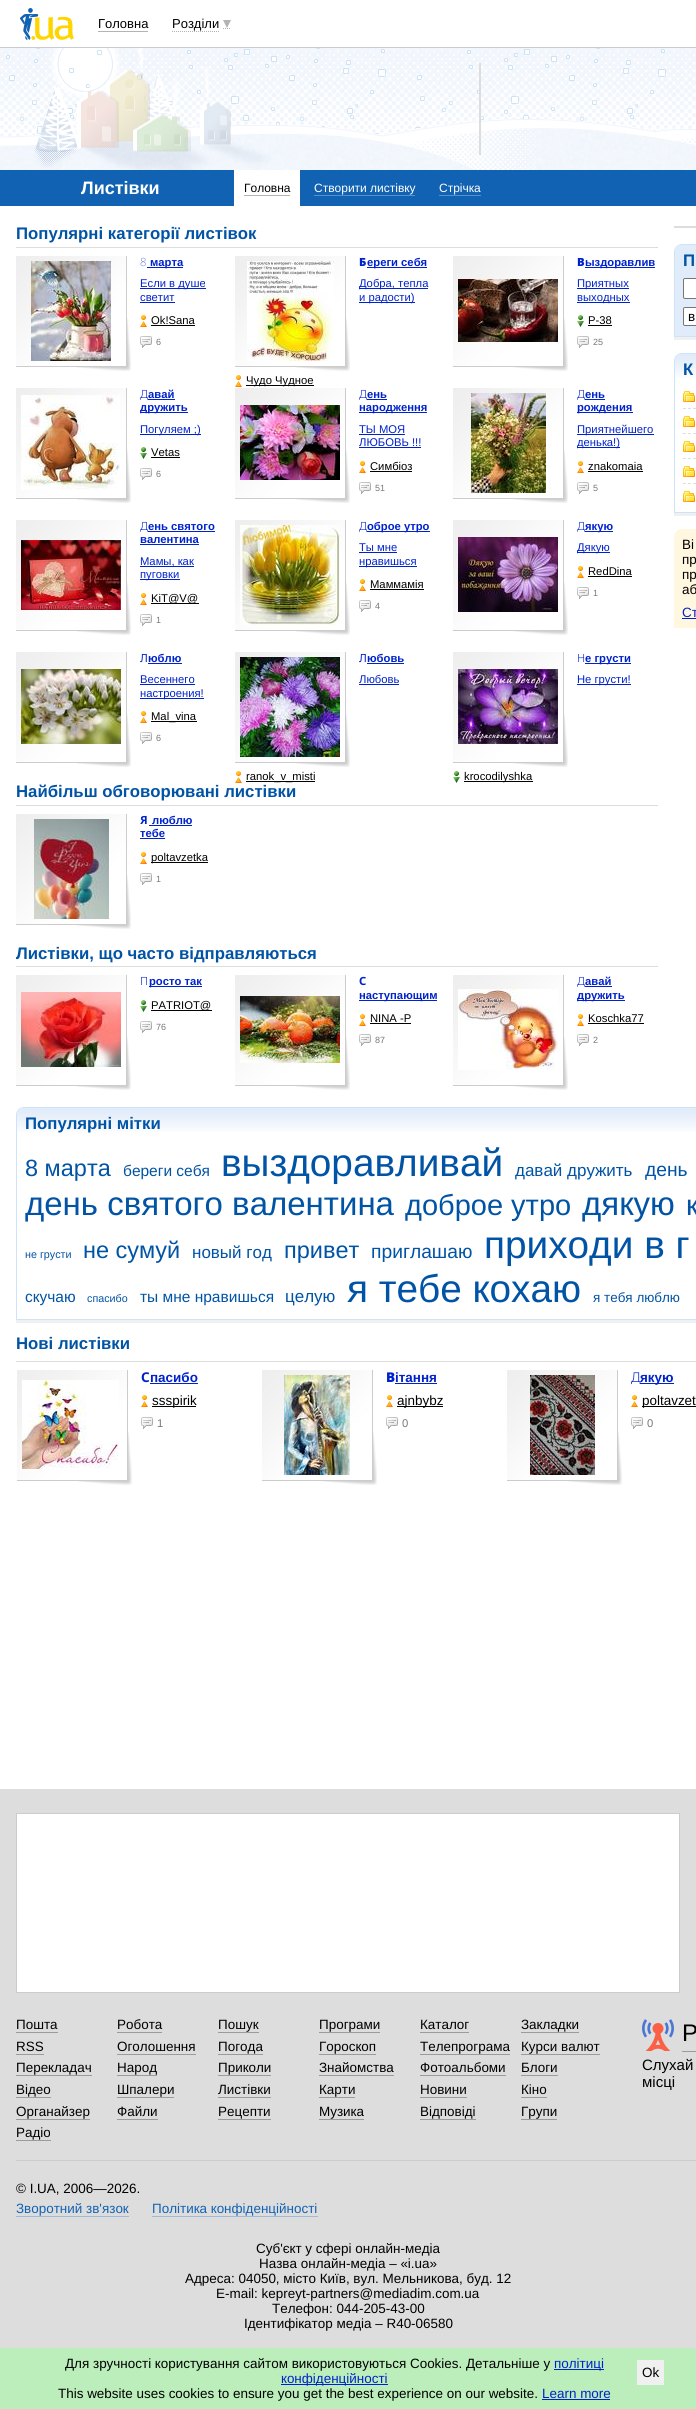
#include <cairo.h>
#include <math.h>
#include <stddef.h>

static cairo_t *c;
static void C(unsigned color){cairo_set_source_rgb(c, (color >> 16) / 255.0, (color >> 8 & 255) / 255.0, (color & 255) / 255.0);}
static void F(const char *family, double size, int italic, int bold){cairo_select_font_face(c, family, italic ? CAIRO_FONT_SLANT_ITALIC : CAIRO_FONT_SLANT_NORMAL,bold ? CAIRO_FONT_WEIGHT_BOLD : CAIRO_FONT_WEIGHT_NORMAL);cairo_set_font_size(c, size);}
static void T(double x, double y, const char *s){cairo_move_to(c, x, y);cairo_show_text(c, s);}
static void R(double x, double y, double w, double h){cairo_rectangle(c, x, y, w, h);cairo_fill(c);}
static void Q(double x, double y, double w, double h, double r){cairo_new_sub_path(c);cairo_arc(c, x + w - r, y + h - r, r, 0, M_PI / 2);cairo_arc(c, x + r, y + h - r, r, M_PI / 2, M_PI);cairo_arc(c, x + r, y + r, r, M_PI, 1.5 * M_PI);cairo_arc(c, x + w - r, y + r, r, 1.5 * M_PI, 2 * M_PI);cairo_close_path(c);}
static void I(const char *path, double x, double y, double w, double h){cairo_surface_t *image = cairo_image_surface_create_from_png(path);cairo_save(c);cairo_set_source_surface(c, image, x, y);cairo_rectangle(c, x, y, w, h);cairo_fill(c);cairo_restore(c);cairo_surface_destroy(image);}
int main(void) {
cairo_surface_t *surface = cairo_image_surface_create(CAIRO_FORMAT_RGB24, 696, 2409);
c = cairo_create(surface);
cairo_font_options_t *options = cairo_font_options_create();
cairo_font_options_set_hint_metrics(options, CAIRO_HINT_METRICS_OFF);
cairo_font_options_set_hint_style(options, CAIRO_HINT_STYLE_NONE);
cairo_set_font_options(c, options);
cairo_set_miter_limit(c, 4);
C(0xffffff);
cairo_paint(c);
C(0xcccccc);
R(0,47,696,1);
I("1.png",20,8,54,32);
F("Liberation Sans",13,0,0);
C(0x000000);
T(98,28,"Головна");
C(0xb3b3b3);
R(98,31,50,1);
cairo_new_path(c);
cairo_move_to(c,172,31.5);
cairo_line_to(c,219,31.5);
cairo_move_to(c,223,28.5);
cairo_line_to(c,231,28.5);
cairo_set_line_width(c,1);
cairo_set_dash(c,(double[]){1,1},2,0);
cairo_stroke(c);
C(0x000000);
T(172,28,"Розділи");
C(0xb3b3b3);
cairo_new_path(c);
cairo_move_to(c,223,20);
cairo_line_to(c,231,20);
cairo_line_to(c,227,28);
cairo_close_path(c);
cairo_fill(c);
I("2.png",0,48,696,122);
C(0xdddddd);
R(479,63,2,92);
C(0x1162b3);
R(0,170,696,36);
F("Liberation Sans",18,0,1);
C(0xffffff);
T(81,194,"Листівки");
R(234,170,66,36);
F("Liberation Sans",12,0,0);
C(0x000000);
T(244,192,"Головна");
C(0xb3b3b3);
R(244,195,46,1);
C(0xffffff);
T(314,192,"Створити листівку");
C(0x5891ca);
R(314,195,101,1);
C(0xffffff);
T(439,192,"Стрічка");
C(0x5891ca);
R(439,195,42,1);
F("Liberation Sans",16.75,0,1);
C(0x0053a5);
T(16,239,"Популярні категорії листівок");
C(0xdddddd);
R(16,247,642,1);
I("3.png",16,256,115,115);
I("4.png",31,261,80,100);
F("Noto Sans Thin",11.25,0,0);
C(0x0022cc);
T(140,266,"8");
R(147,267,36,1);
F("Liberation Sans",11.25,0,1);
T(150,266,"марта");
R(140,288,66,1);
F("Liberation Sans",11.25,0,0);
T(140,287,"Если в душе");
T(140,301,"светит");
R(140,302,35,1);
I("5.png",140,315,7,12);
C(0x000000);
T(151,324,"Ok!Sana");
R(151,325,44,1);
I("6.png",140,336,12,12);
F("Liberation Sans",9,0,0);
C(0x777777);
T(156,345,"6");
I("3.png",235,256,115,115);
I("7.png",247,261,87,100);
F("Noto Sans Black",11.25,0,0);
C(0x0022cc);
T(359,266,"Б");
R(367,267,60,1);
F("Liberation Sans",11.25,0,1);
T(367,266,"ереги себя");
R(359,288,69,1);
cairo_save(c);
cairo_rectangle(c,359,277,78,27);
cairo_clip(c);
F("Liberation Sans",11.25,0,0);
T(359,287,"Добра, тепла");
cairo_restore(c);
R(359,302,56,1);
F("Liberation Sans",11.25,0,0);
T(359,301,"и радости)");
I("5.png",235,375,7,12);
C(0x000000);
R(246,385,68,1);
T(246,384,"Чудо Чудное");
I("3.png",453,256,115,115);
I("8.png",458,279,100,63);
F("Noto Sans Black",11.25,0,0);
C(0x0022cc);
T(577,266,"В");
R(585,267,70,1);
cairo_save(c);
cairo_rectangle(c,577,256,78,13);
cairo_clip(c);
F("Liberation Sans",11.25,0,1);
T(585,266,"ыздоравлив");
cairo_restore(c);
R(577,288,52,1);
F("Liberation Sans",11.25,0,0);
T(577,287,"Приятных");
R(577,302,53,1);
T(577,301,"выходных");
I("9.png",577,315,7,12);
C(0x000000);
T(588,324,"P-38");
R(588,325,24,1);
I("6.png",577,336,12,12);
F("Liberation Sans",9,0,0);
C(0x777777);
T(593,345,"25");
I("3.png",16,388,115,115);
I("10.png",21,395,99,95);
F("Noto Sans Light",11.25,0,0);
C(0x0022cc);
T(140,398,"Д");
F("Liberation Sans",11.25,0,1);
T(148,398,"авай");
R(148,399,27,1);
R(140,412,48,1);
T(140,411,"дружить");
R(140,434,61,1);
F("Liberation Sans",11.25,0,0);
T(140,433,"Погуляем ;)");
I("9.png",140,447,7,12);
C(0x000000);
T(151,456,"Vetas");
R(151,457,29,1);
I("6.png",140,468,12,12);
F("Liberation Sans",9,0,0);
C(0x777777);
T(156,477,"6");
I("3.png",235,388,115,115);
I("11.png",240,405,100,75);
F("Noto Sans Light",11.25,0,0);
C(0x0022cc);
T(359,398,"Д");
F("Liberation Sans",11.25,0,1);
T(367,398,"ень");
R(367,399,20,1);
R(359,412,68,1);
T(359,411,"народження");
F("Liberation Sans",11.25,0,0);
T(359,433,"ТЫ МОЯ");
R(359,434,46,1);
T(359,446,"ЛЮБОВЬ !!!");
R(359,447,62,1);
I("5.png",359,461,7,12);
C(0x000000);
T(370,470,"Симбіоз");
R(370,471,42,1);
I("6.png",359,482,12,12);
F("Liberation Sans",9,0,0);
C(0x777777);
T(375,491,"51");
I("3.png",453,388,115,115);
I("12.png",471,393,75,100);
F("Noto Sans Light",11.25,0,0);
C(0x0022cc);
T(577,398,"Д");
F("Liberation Sans",11.25,0,1);
T(585,398,"ень");
R(585,399,20,1);
R(577,412,56,1);
T(577,411,"рождения");
R(577,434,77,1);
F("Liberation Sans",11.25,0,0);
T(577,433,"Приятнейшего");
R(577,447,43,1);
T(577,446,"денька!)");
I("5.png",577,461,7,12);
C(0x000000);
T(588,470,"znakomaia");
R(588,471,55,1);
I("6.png",577,482,12,12);
F("Liberation Sans",9,0,0);
C(0x777777);
T(593,491,"5");
I("3.png",16,520,115,115);
I("13.png",21,540,100,70);
F("Noto Sans Light",11.25,0,0);
C(0x0022cc);
T(140,530,"Д");
F("Liberation Sans",11.25,0,1);
T(148,530,"ень святого");
R(148,531,67,1);
T(140,543,"валентина");
R(140,544,59,1);
R(140,566,54,1);
F("Liberation Sans",11.25,0,0);
T(140,565,"Мамы, как");
R(140,579,40,1);
T(140,578,"пуговки");
I("5.png",140,593,7,12);
C(0x000000);
R(151,603,48,1);
T(151,602,"KiT@V@");
I("6.png",140,614,12,12);
F("Liberation Sans",9,0,0);
C(0x777777);
T(156,623,"1");
I("3.png",235,520,115,115);
I("14.png",240,525,100,100);
F("Noto Sans Light",11.25,0,0);
C(0x0022cc);
T(359,530,"Д");
R(367,531,63,1);
F("Liberation Sans",11.25,0,1);
T(367,530,"оброе утро");
F("Liberation Sans",11.25,0,0);
T(359,551,"Ты мне");
R(359,552,38,1);
R(359,566,58,1);
T(359,565,"нравишься");
I("5.png",359,579,7,12);
C(0x000000);
T(370,588,"Маммамія");
R(370,589,54,1);
I("6.png",359,600,12,12);
F("Liberation Sans",9,0,0);
C(0x777777);
T(375,609,"4");
I("3.png",453,520,115,115);
I("15.png",458,537,100,75);
F("Noto Sans Light",11.25,0,0);
C(0x0022cc);
T(577,530,"Д");
R(585,531,28,1);
F("Liberation Sans",11.25,0,1);
T(585,530,"якую");
R(577,552,33,1);
F("Liberation Sans",11.25,0,0);
T(577,551,"Дякую");
I("5.png",577,566,7,12);
C(0x000000);
T(588,575,"RedDina");
R(588,576,44,1);
I("6.png",577,587,12,12);
F("Liberation Sans",9,0,0);
C(0x777777);
T(593,596,"1");
I("3.png",16,652,115,115);
I("16.png",21,669,100,75);
F("Noto Sans",11.25,0,0);
C(0x0022cc);
T(140,662,"Л");
F("Liberation Sans",11.25,0,1);
T(148,662,"юблю");
R(148,663,34,1);
F("Liberation Sans",11.25,0,0);
T(140,683,"Весеннего");
R(140,684,55,1);
R(140,698,64,1);
T(140,697,"настроения!");
I("5.png",140,711,7,12);
C(0x000000);
R(151,721,46,1);
T(151,720,"Mal_vina");
I("6.png",140,732,12,12);
F("Liberation Sans",9,0,0);
C(0x777777);
T(156,741,"6");
I("3.png",235,652,115,115);
I("17.png",240,657,100,100);
F("Noto Sans",11.25,0,0);
C(0x0022cc);
T(359,662,"Л");
F("Liberation Sans",11.25,0,1);
T(367,662,"юбовь");
R(367,663,37,1);
F("Liberation Sans",11.25,0,0);
T(359,683,"Любовь");
R(359,684,40,1);
I("5.png",235,771,7,12);
C(0x000000);
R(246,781,69,1);
T(246,780,"ranok_v_misti");
I("3.png",453,652,115,115);
I("18.png",458,669,100,75);
F("Noto Sans Light",11.25,0,0);
C(0x0022cc);
T(577,662,"Н");
R(585,663,46,1);
F("Liberation Sans",11.25,0,1);
T(585,662,"е грусти");
R(577,684,54,1);
F("Liberation Sans",11.25,0,0);
T(577,683,"Не грусти!");
I("9.png",453,771,7,12);
C(0x000000);
R(464,781,69,1);
T(464,780,"krocodilyshka");
F("Liberation Sans",16.75,0,1);
C(0x0053a5);
T(16,797,"Найбільш обговорювані листівки");
C(0xdddddd);
R(16,805,642,1);
I("3.png",16,814,115,115);
I("19.png",34,819,75,100);
F("Noto Sans",11.25,0,1);
C(0x0022cc);
T(140,824,"Я");
F("Liberation Sans",11.25,0,1);
T(152,824,"люблю");
R(149,825,43,1);
T(140,837,"тебе");
R(140,838,25,1);
I("5.png",140,852,7,12);
C(0x000000);
R(151,862,57,1);
F("Liberation Sans",11.25,0,0);
T(151,861,"poltavzetka");
I("6.png",140,873,12,12);
F("Liberation Sans",9,0,0);
C(0x777777);
T(156,882,"1");
F("Liberation Sans",16.75,0,1);
C(0x0053a5);
T(16,959,"Листівки, що часто відправляються");
C(0xdddddd);
R(16,966,642,1);
I("3.png",16,975,115,115);
I("20.png",21,992,100,75);
F("Noto Sans Light",11.25,0,0);
C(0x0022cc);
T(140,985,"П");
R(149,986,53,1);
F("Liberation Sans",11.25,0,1);
T(149,985,"росто так");
I("9.png",140,1000,7,12);
C(0x000000);
R(151,1010,61,1);
F("Liberation Sans",11.25,0,0);
T(151,1009,"PATRIOT@");
I("6.png",140,1021,12,12);
F("Liberation Sans",9,0,0);
C(0x777777);
T(156,1030,"76");
I("3.png",235,975,115,115);
I("21.png",240,996,100,67);
F("Noto Sans",11.25,0,1);
C(0x0022cc);
T(359,985,"С");
R(359,1000,78,1);
F("Liberation Sans",11.25,0,1);
T(359,999,"наступающим");
I("5.png",359,1014,7,12);
F("Liberation Sans",11.25,0,0);
C(0x000000);
T(370,1022,"NINA -Р");
R(370,1023,41,1);
I("6.png",359,1034,12,12);
F("Liberation Sans",9,0,0);
C(0x777777);
T(375,1043,"87");
I("3.png",453,975,115,115);
I("22.png",458,989,100,81);
F("Noto Sans Light",11.25,0,0);
C(0x0022cc);
T(577,985,"Д");
F("Liberation Sans",11.25,0,1);
T(585,985,"авай");
R(585,986,27,1);
R(577,1000,48,1);
T(577,999,"дружить");
I("5.png",577,1014,7,12);
F("Liberation Sans",11.25,0,0);
C(0x000000);
T(588,1022,"Koschka77");
R(588,1023,56,1);
I("6.png",577,1034,12,12);
F("Liberation Sans",9,0,0);
C(0x777777);
T(593,1043,"2");
C(0xdddddd);
R(674,226,22,2);
C(0xf0f0f0);
R(674,337,22,3);
C(0xe1ecfa);
cairo_rectangle(c,674.5,244.5,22,92);
cairo_fill_preserve(c);
C(0xcee3f7);
cairo_set_dash(c,NULL,0,0);
cairo_stroke(c);
I("23.png",674,244,7,7);
F("Liberation Sans",16.75,0,1);
C(0x0053a5);
T(683,266,"П");
C(0xffffff);
Q(683.5,278.5,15,20,1.5);
cairo_fill_preserve(c);
C(0x767676);
cairo_stroke(c);
C(0xffffff);
Q(683.5,307.5,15,18,1.5);
cairo_fill_preserve(c);
C(0x767676);
cairo_stroke(c);
F("Liberation Sans",13.45,0,0);
C(0x000000);
T(688,321,"в");
C(0xf0f0f0);
R(674,513,22,3);
I("25.png",675,354,21,24);
cairo_rectangle(c,674.5,353.5,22,159);
C(0xcee3f7);
cairo_stroke(c);
I("24.png",674,353,7,7);
F("Liberation Sans",16.75,0,1);
C(0x0053a5);
T(683,375,"К");
cairo_new_path(c);
cairo_move_to(c,683,408.5);
cairo_line_to(c,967,408.5);
cairo_move_to(c,683,433.5);
cairo_line_to(c,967,433.5);
cairo_move_to(c,683,458.5);
cairo_line_to(c,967,458.5);
C(0xdddddd);
cairo_set_dash(c,(double[]){3,2.02},2,0);
cairo_stroke(c);
I("26.png",683,391,12,11);
I("26.png",683,416,12,11);
I("26.png",683,441,12,11);
cairo_new_path(c);
cairo_move_to(c,683,483.5);
cairo_line_to(c,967,483.5);
cairo_stroke(c);
I("26.png",683,466,12,11);
I("26.png",683,491,12,11);
C(0xfff7df);
R(674,529,22,99);
I("27.png",674,529,7,7);
F("Liberation Sans",13.45,0,0);
C(0x000000);
T(682,549,"Ві");
T(682,564,"пр");
T(682,579,"пр");
T(682,594,"аб");
C(0x0022cc);
T(682,617,"Ст");
R(682,618,14,1);
C(0xf0f0f0);
R(16,1320,680,3);
I("28.png",17,1108,679,24);
cairo_rectangle(c,16.5,1107.5,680,212);
C(0xcee3f7);
cairo_set_dash(c,NULL,0,0);
cairo_stroke(c);
I("24.png",16,1107,7,7);
F("Liberation Sans",16.75,0,1);
C(0x0053a5);
T(25,1129,"Популярні мітки");
F("Liberation Sans",23.5,0,0);
T(25,1176,"8 марта");
F("Liberation Sans",15.5,0,0);
T(123,1176,"береги себя");
F("Liberation Sans",38.75,0,0);
T(221,1176,"выздоравливай");
F("Liberation Sans",17,0,0);
T(515,1176,"давай дружить");
F("Liberation Sans",19.25,0,0);
T(645,1176,"день");
F("Liberation Sans",33,0,0);
T(25,1215,"день святого валентина");
F("Liberation Sans",29,0,0);
T(405,1215,"доброе утро");
F("Liberation Sans",33,0,0);
T(582,1215,"дякую");
F("Liberation Sans",29,0,0);
T(686,1215,"к");
F("Liberation Sans",10.75,0,0);
T(25,1258,"не грусти");
F("Liberation Sans",23.5,0,0);
T(83,1258,"не сумуй");
F("Liberation Sans",17,0,0);
T(192,1258,"новый год");
F("Liberation Sans",23.5,0,0);
T(284,1258,"привет");
F("Liberation Sans",19.25,0,0);
T(371,1258,"приглашаю");
F("Liberation Sans",38.75,0,0);
T(484,1258,"приходи в г");
F("Liberation Sans",15.5,0,0);
T(25,1302,"скучаю");
F("Liberation Sans",10.75,0,0);
T(87,1302,"спасибо");
F("Liberation Sans",15.5,0,0);
T(140,1302,"ты мне нравишься");
F("Liberation Sans",17,0,0);
T(285,1302,"целую");
F("Liberation Sans",38.75,0,0);
T(347,1302,"я тебе кохаю");
F("Liberation Sans",13.45,0,0);
T(593,1302,"я тебя люблю");
C(0xdddddd);
R(16,1361,680,1);
F("Liberation Sans",16.75,0,1);
C(0x0053a5);
T(16,1349,"Нові листівки");
I("3.png",17,1370,115,115);
I("29.png",22,1380,97,89);
F("Noto Sans",13.45,0,1);
C(0x0022cc);
T(141,1382,"С");
F("Liberation Sans",13.45,0,1);
T(150,1382,"пасибо");
R(150,1383,48,1);
I("5.png",141,1395,7,12);
C(0x000000);
R(152,1406,44,1);
F("Liberation Sans",13.45,0,0);
T(152,1405,"ssspirik");
I("6.png",141,1417,12,12);
F("Liberation Sans",11.25,0,0);
C(0x777777);
T(157,1427,"1");
I("3.png",262,1370,115,115);
I("30.png",284,1375,66,100);
F("Noto Sans Black",13.45,0,0);
C(0x0022cc);
T(386,1382,"В");
F("Liberation Sans",13.45,0,1);
T(395,1382,"ітання");
R(395,1383,42,1);
I("5.png",386,1395,7,12);
C(0x000000);
R(397,1406,46,1);
F("Liberation Sans",13.45,0,0);
T(397,1405,"ajnbybz");
I("6.png",386,1417,12,12);
F("Liberation Sans",11.25,0,0);
C(0x777777);
T(402,1427,"0");
I("3.png",507,1370,115,115);
I("31.png",530,1375,65,100);
F("Noto Sans Light",13.45,0,0);
C(0x0022cc);
T(631,1382,"Д");
R(640,1383,34,1);
F("Liberation Sans",13.45,0,1);
T(640,1382,"якую");
I("5.png",631,1395,7,12);
C(0x000000);
R(642,1406,54,1);
F("Liberation Sans",13.45,0,0);
T(642,1405,"poltavzet");
I("6.png",631,1417,12,12);
F("Liberation Sans",11.25,0,0);
C(0x777777);
T(647,1427,"0");
C(0xdddddd);
R(0,1789,696,559);
C(0xffffff);
cairo_rectangle(c,16.5,1813.5,663,179);
cairo_fill_preserve(c);
C(0xcccccc);
cairo_stroke(c);
F("Liberation Sans",13.45,0,0);
C(0x000000);
T(16,2029,"Пошта");
C(0x9b9b9b);
R(16,2032,42,1);
C(0x000000);
T(117,2029,"Робота");
C(0x9b9b9b);
R(117,2032,45,1);
C(0x000000);
T(218,2029,"Пошук");
C(0x9b9b9b);
R(218,2032,41,1);
C(0x000000);
T(319,2029,"Програми");
C(0x9b9b9b);
R(319,2032,61,1);
C(0x000000);
T(420,2029,"Каталог");
C(0x9b9b9b);
R(420,2032,49,1);
C(0x000000);
T(521,2029,"Закладки");
C(0x9b9b9b);
R(521,2032,58,1);
C(0x000000);
T(16,2051,"RSS");
C(0x9b9b9b);
R(16,2054,28,1);
C(0x000000);
T(117,2051,"Оголошення");
C(0x9b9b9b);
R(117,2054,79,1);
C(0x000000);
T(218,2051,"Погода");
C(0x9b9b9b);
R(218,2054,45,1);
C(0x000000);
T(319,2051,"Гороскоп");
C(0x9b9b9b);
R(319,2054,57,1);
C(0x000000);
T(420,2051,"Телепрограма");
C(0x9b9b9b);
R(420,2054,90,1);
C(0x000000);
T(521,2051,"Курси валют");
C(0x9b9b9b);
R(521,2054,79,1);
C(0x000000);
T(16,2072,"Перекладач");
C(0x9b9b9b);
R(16,2075,76,1);
C(0x000000);
T(117,2072,"Народ");
C(0x9b9b9b);
R(117,2075,40,1);
C(0x000000);
T(218,2072,"Приколи");
C(0x9b9b9b);
R(218,2075,53,1);
C(0x000000);
T(319,2072,"Знайомства");
C(0x9b9b9b);
R(319,2075,75,1);
C(0x000000);
T(420,2072,"Фотоальбоми");
C(0x9b9b9b);
R(420,2075,86,1);
C(0x000000);
T(521,2072,"Блоги");
C(0x9b9b9b);
R(521,2075,37,1);
C(0x000000);
T(16,2094,"Відео");
C(0x9b9b9b);
R(16,2097,35,1);
C(0x000000);
T(117,2094,"Шпалери");
C(0x9b9b9b);
R(117,2097,57,1);
C(0x000000);
T(218,2094,"Листівки");
C(0x9b9b9b);
R(218,2097,53,1);
C(0x000000);
T(319,2094,"Карти");
C(0x9b9b9b);
R(319,2097,36,1);
C(0x000000);
T(420,2094,"Новини");
C(0x9b9b9b);
R(420,2097,47,1);
C(0x000000);
T(521,2094,"Кіно");
C(0x9b9b9b);
R(521,2097,26,1);
C(0x000000);
T(16,2116,"Органайзер");
C(0x9b9b9b);
R(16,2119,74,1);
C(0x000000);
T(117,2116,"Файли");
C(0x9b9b9b);
R(117,2119,41,1);
C(0x000000);
T(218,2116,"Рецепти");
C(0x9b9b9b);
R(218,2119,53,1);
C(0x000000);
T(319,2116,"Музика");
C(0x9b9b9b);
R(319,2119,45,1);
C(0x000000);
T(420,2116,"Відповіді");
C(0x9b9b9b);
R(420,2119,56,1);
C(0x000000);
T(521,2116,"Групи");
C(0x9b9b9b);
R(521,2119,36,1);
C(0x000000);
T(16,2137,"Радіо");
C(0x9b9b9b);
R(16,2140,35,1);
R(682,2051,14,1);
I("32.png",642,2019,32,32);
F("Liberation Sans",24,0,0);
C(0x000000);
T(682,2041,"Р");
F("Liberation Sans",15,0,0);
T(642,2070,"Слухай");
T(642,2087,"місці");
C(0xcccccc);
R(16,2160,680,1);
F("Liberation Sans",13.45,0,0);
C(0x000000);
T(16,2193,"© I.UA, 2006—2026.");
C(0x1162b3);
T(16,2213,"Зворотний зв'язок");
C(0xa0b8d0);
R(16,2216,113,1);
C(0x1162b3);
T(152,2213,"Політика конфіденційності");
C(0xa0b8d0);
R(152,2216,166,1);
C(0x000000);
T(256,2253,"Суб'єкт у сфері онлайн-медіа");
T(259,2268,"Назва онлайн-медіа – «i.ua»");
T(185,2283,"Адреса: 04050, місто Київ, вул. Мельникова, буд. 12");
T(216,2298,"E-mail: kepreyt-partners@mediadim.com.ua");
T(272,2313,"Телефон: 044-205-43-00");
T(244,2328,"Ідентифікатор медіа – R40-06580");
C(0xbbeebb);
R(0,2348,696,61);
C(0x000000);
T(65,2368,"Для зручності користування сайтом використовуються Cookies. Детальніше у");
C(0x0022cc);
R(554,2369,50,1);
T(554,2368,"політиці");
R(281,2384,107,1);
T(281,2383,"конфіденційності");
C(0xf0f0f0);
R(637,2360,27,25);
C(0x000000);
T(642,2377,"Ok");
T(58,2398,"This website uses cookies to ensure you get the best experience on our website.");
C(0x0022cc);
T(542,2398,"Learn more");
R(542,2399,68,1);
cairo_surface_write_to_png(surface, "o.png");
cairo_font_options_destroy(options);
cairo_destroy(c);
cairo_surface_destroy(surface);
return 0;
}
